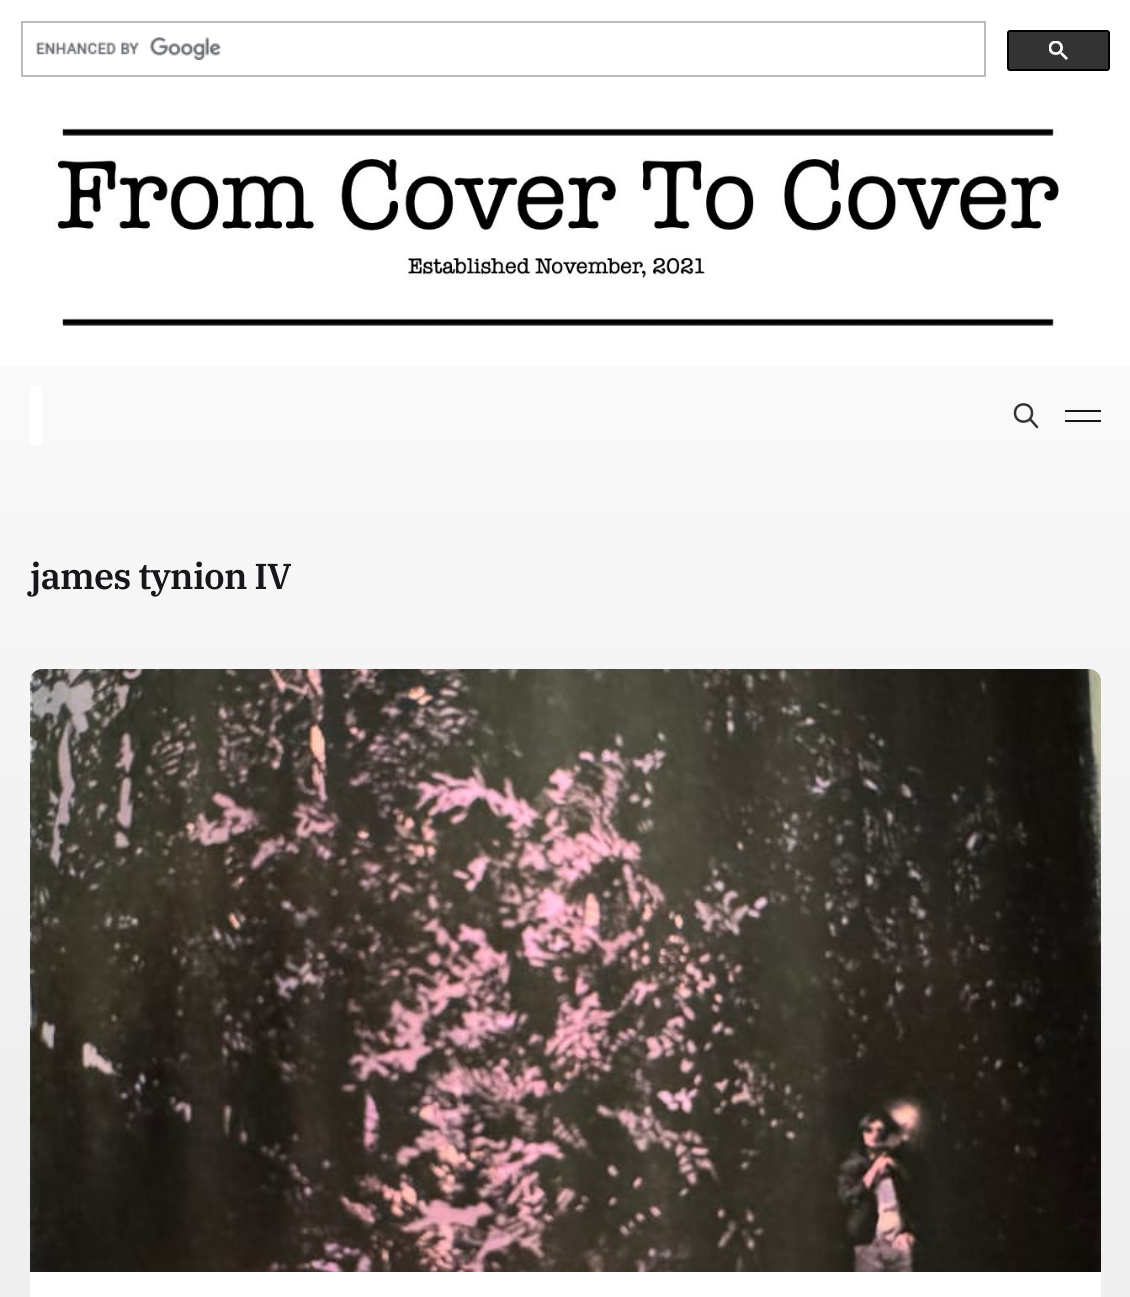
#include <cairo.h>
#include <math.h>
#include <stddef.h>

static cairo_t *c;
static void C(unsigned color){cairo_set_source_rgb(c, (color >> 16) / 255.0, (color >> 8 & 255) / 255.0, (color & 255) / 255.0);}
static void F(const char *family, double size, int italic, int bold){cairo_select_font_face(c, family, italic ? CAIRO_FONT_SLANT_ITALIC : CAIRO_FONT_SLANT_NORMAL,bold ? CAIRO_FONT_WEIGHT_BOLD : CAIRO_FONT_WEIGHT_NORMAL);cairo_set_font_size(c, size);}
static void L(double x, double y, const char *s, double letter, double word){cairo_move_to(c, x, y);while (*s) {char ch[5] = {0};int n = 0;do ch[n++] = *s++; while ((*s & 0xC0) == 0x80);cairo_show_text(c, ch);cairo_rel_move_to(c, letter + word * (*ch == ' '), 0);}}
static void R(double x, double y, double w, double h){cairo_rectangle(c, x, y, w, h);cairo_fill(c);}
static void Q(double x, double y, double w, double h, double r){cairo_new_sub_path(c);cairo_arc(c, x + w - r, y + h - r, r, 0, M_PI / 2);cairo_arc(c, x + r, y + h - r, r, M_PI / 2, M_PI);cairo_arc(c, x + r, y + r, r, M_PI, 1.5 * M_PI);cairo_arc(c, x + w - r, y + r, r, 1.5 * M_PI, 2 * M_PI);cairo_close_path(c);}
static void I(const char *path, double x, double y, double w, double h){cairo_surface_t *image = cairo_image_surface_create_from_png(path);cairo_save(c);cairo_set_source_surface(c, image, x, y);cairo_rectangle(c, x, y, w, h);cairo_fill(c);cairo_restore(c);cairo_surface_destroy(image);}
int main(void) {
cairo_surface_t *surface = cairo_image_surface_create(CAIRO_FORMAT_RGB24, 1130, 1297);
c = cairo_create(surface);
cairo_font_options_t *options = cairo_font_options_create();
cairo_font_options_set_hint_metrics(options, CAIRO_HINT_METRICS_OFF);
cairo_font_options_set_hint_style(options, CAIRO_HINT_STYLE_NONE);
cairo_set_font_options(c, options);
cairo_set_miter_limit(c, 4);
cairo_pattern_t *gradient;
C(0xffffff);
cairo_paint(c);
gradient = cairo_pattern_create_linear(566,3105,566,0);
cairo_pattern_add_color_stop_rgba(gradient,.65,0.937,0.937,0.937,1);
cairo_pattern_add_color_stop_rgba(gradient,1,1,1,1,1);
cairo_set_source(c,gradient);
cairo_pattern_destroy(gradient);
R(0,170,1130,1127);
cairo_rectangle(c,22,22,963,54);
C(0xbbbbbb);
cairo_stroke(c);
I("1.png",36,37,185,23);
C(0x333333);
Q(1008,31,101,39,2);
cairo_fill_preserve(c);
C(0x000000);
cairo_stroke(c);
I("2.png",1049,41,19,19);
I("3.png",0,126,1130,241);
C(0xffffff);
R(30,386,12,59);
cairo_new_path(c);
cairo_move_to(c,1037,427);
cairo_line_to(c,1030,419);
cairo_move_to(c,1032,413);
cairo_curve_to(c,1032,424.5,1015,424.5,1015,413);
cairo_curve_to(c,1015,401.5,1032,401.5,1032,413);
cairo_close_path(c);
C(0x333333);
cairo_set_line_width(c,2.5);
cairo_set_line_cap(c,CAIRO_LINE_CAP_ROUND);
cairo_set_line_join(c,CAIRO_LINE_JOIN_ROUND);
cairo_stroke(c);
C(0x15171a);
R(1065,410,36,2);
R(1065,420,36,2);
F("IBM Plex Serif SemiBold",36,0,0);
L(30,589,"james tynion IV",-.75,0);
I("4.png",30,669,1071,603);
C(0xffffff);
R(30,1272,1071,25);
cairo_surface_write_to_png(surface, "o.png");
cairo_font_options_destroy(options);
cairo_destroy(c);
cairo_surface_destroy(surface);
return 0;
}
